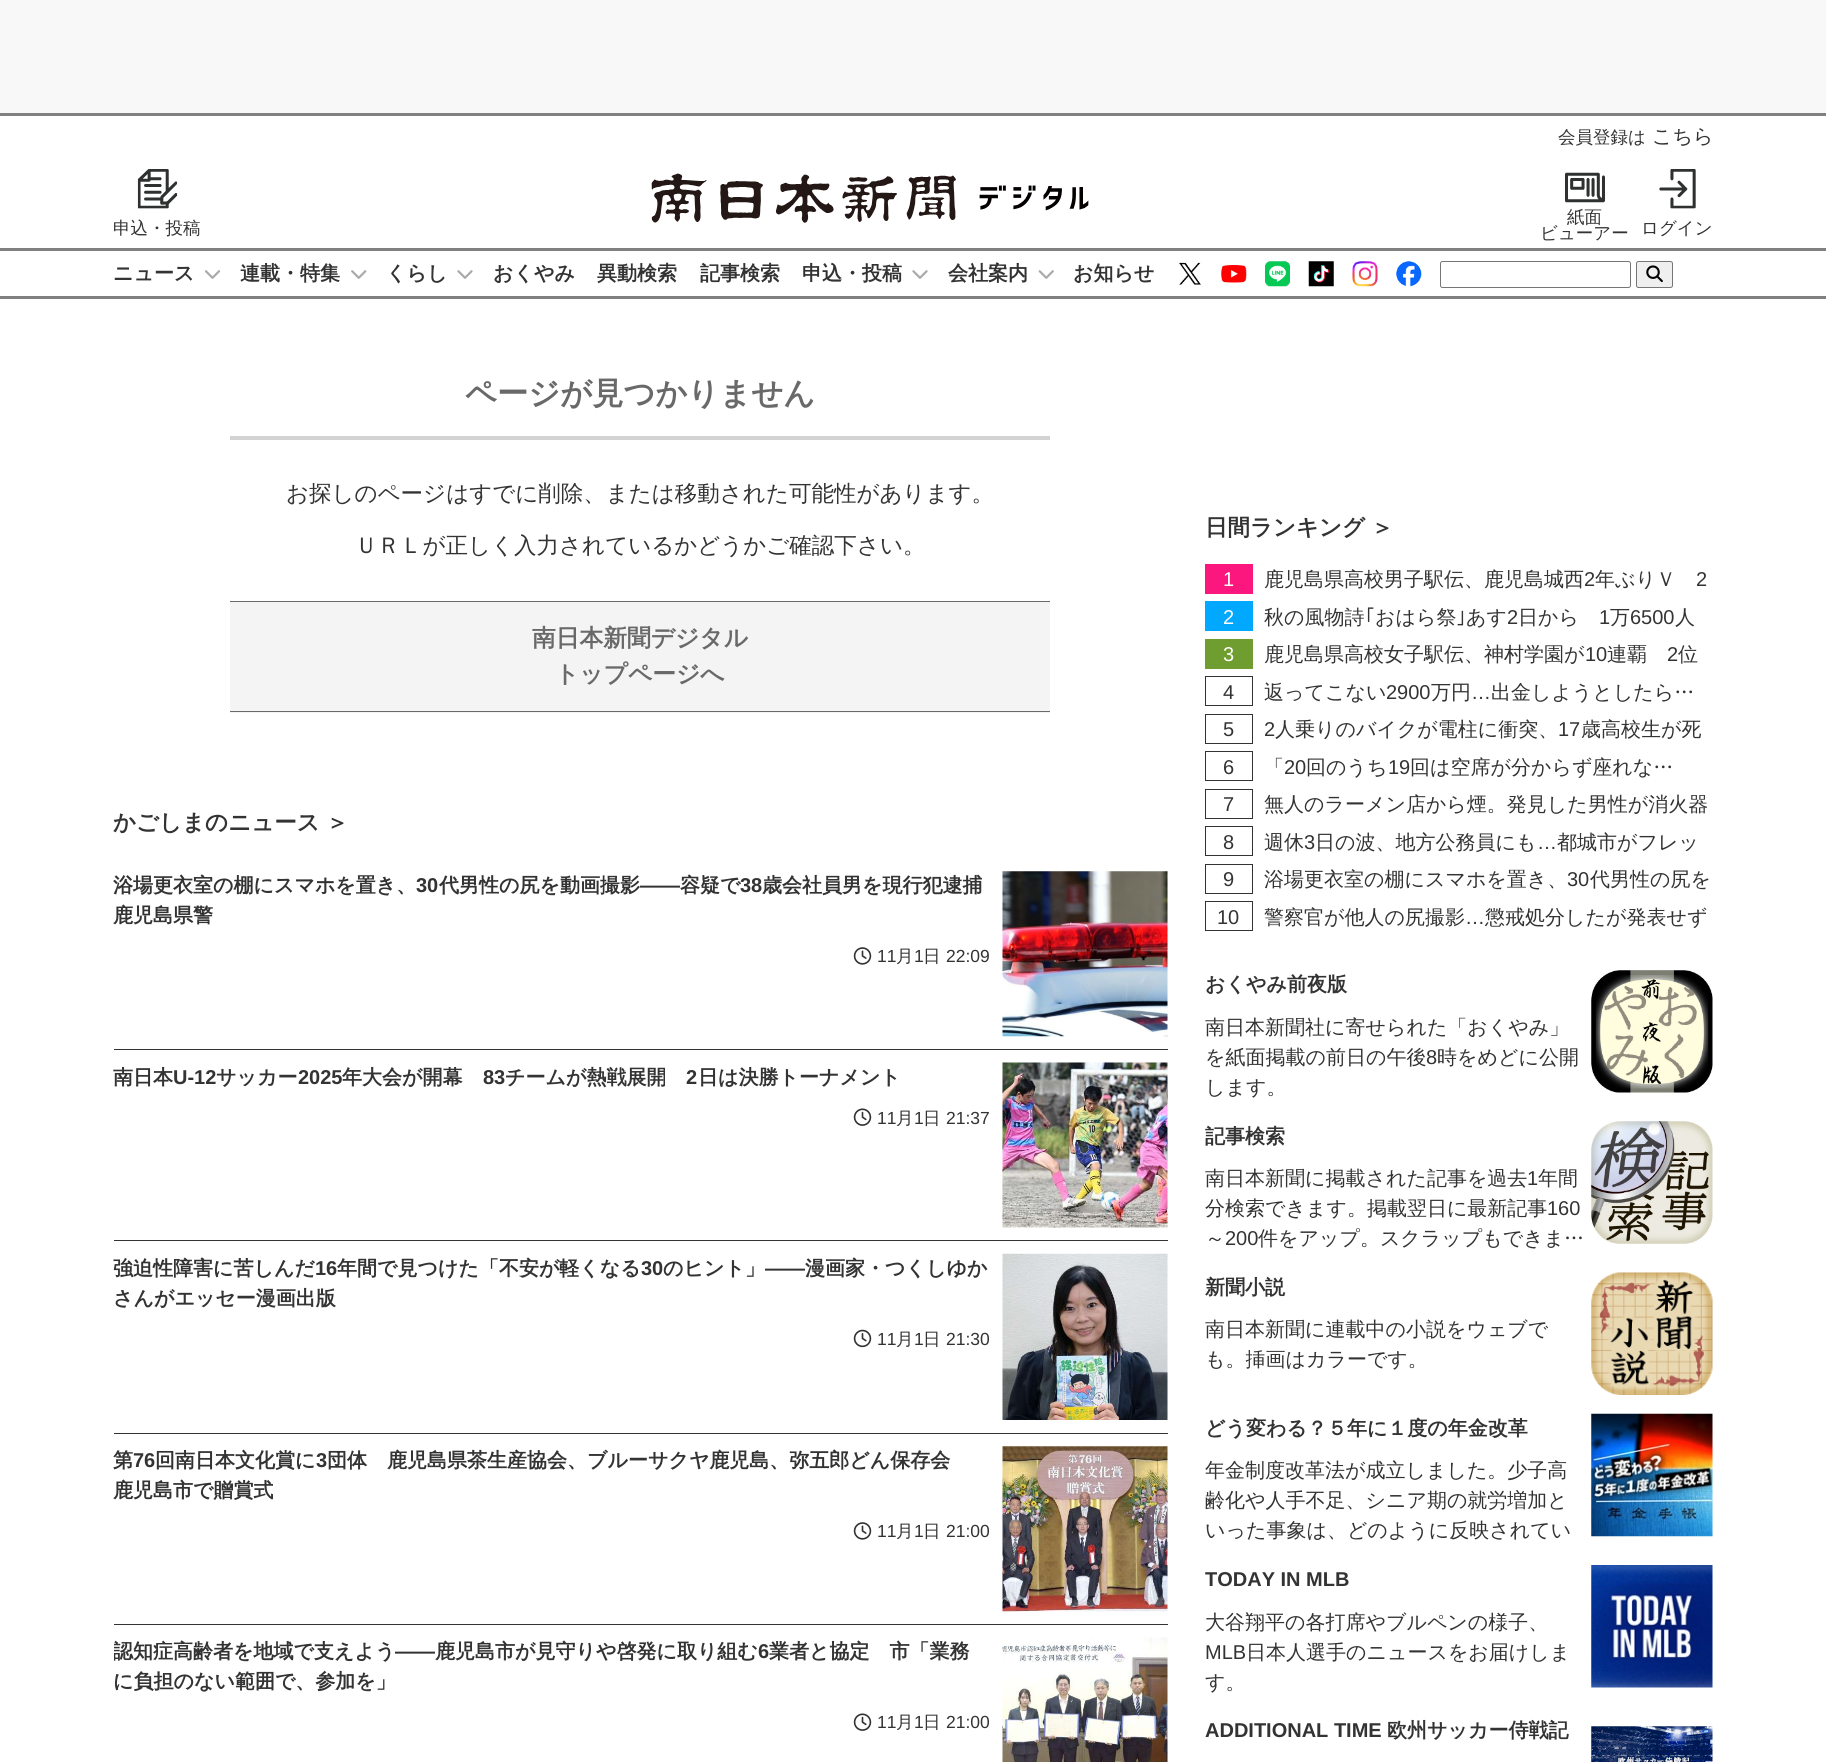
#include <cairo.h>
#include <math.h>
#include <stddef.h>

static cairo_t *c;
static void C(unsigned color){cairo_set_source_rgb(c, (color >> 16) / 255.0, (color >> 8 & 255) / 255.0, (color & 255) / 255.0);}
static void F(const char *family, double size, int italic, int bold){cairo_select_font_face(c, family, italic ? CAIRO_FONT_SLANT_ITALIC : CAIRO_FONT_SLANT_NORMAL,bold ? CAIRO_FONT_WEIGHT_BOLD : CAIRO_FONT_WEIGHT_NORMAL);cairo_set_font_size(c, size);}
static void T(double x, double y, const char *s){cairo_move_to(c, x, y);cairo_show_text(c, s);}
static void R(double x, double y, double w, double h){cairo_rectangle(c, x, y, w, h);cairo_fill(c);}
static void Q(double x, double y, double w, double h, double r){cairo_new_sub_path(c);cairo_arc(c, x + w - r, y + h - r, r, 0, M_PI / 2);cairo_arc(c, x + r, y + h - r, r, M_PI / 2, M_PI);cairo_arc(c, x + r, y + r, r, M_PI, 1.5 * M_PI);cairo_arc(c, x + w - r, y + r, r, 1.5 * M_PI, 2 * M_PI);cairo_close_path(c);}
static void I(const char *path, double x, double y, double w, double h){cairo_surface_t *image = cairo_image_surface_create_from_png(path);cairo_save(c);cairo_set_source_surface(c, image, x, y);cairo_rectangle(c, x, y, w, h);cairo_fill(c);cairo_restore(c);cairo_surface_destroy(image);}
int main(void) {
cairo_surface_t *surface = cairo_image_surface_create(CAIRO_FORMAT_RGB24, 1826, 1762);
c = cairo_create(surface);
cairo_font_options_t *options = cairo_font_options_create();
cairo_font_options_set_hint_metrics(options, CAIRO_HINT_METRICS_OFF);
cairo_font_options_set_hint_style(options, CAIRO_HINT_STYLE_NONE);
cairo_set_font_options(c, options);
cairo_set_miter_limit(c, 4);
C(0xffffff);
cairo_paint(c);
C(0xf8f8f8);
R(0,0,1826,113);
C(0x808080);
R(0,113,1826,3);
R(0,296,1826,3);
F("WenQuanYi Zen Hei Medium",17.5,0,0);
C(0x333333);
T(1558,143,"会員登録は");
F("WenQuanYi Zen Hei Medium",20,0,0);
T(1652,143,"こちら");
I("1.png",137,169,41,40);
F("WenQuanYi Zen Hei Medium",17.5,0,0);
T(113,234,"申込・投稿");
I("2.png",651,173,438,50);
I("3.png",1565,172,40,31);
T(1567,223,"紙面");
T(1540,239,"ビューアー");
I("4.png",1659,169,37,40);
T(1641,234,"ログイン");
C(0x808080);
R(0,248,1826,3);
F("WenQuanYi Zen Hei",20,0,1);
C(0x333333);
T(113,280,"ニュース");
I("5.png",204,270,17,9);
T(240,280,"連載・特集");
I("6.png",351,270,16,9);
T(386,280,"くらし");
I("7.png",457,270,16,9);
T(493,280,"おくやみ");
T(597,280,"異動検索");
T(700,280,"記事検索");
T(802,280,"申込・投稿");
I("7.png",912,270,16,9);
T(948,280,"会社案内");
I("8.png",1038,270,16,9);
T(1073,280,"お知らせ");
I("9.png",1179,262,22,23);
I("10.png",1221,265,26,18);
I("11.png",1265,261,25,26);
I("12.png",1308,261,26,26);
I("13.png",1352,261,26,26);
I("14.png",1396,261,26,26);
Q(1440.5,261.5,190,26,2);
C(0x767676);
cairo_set_line_width(c,1);
cairo_stroke(c);
C(0xefefef);
Q(1636.5,261.5,36,26,2);
cairo_fill_preserve(c);
C(0x767676);
cairo_stroke(c);
I("15.png",1646,265,17,18);
C(0xd3d3d3);
R(230,436,820,4);
F("WenQuanYi Zen Hei",31.25,0,1);
C(0x696969);
T(465,404,"ページが見つかりません");
F("WenQuanYi Zen Hei Medium",22.5,0,0);
C(0x333333);
T(286,501,"お探しのページはすでに削除、または移動された可能性があります。");
T(355,553,"ＵＲＬが正しく入力されているかどうかご確認下さい。");
C(0xf4f4f4);
R(230,602,820,111);
C(0x696969);
R(230,601,820,1);
R(230,711,820,1);
F("WenQuanYi Zen Hei",23.75,0,1);
T(532,646,"南日本新聞デジタル");
T(555,682,"トップページへ");
F("WenQuanYi Zen Hei",22.5,0,1);
C(0x333333);
T(113,830,"かごしまのニュース");
T(326,830,"＞");
R(114,1049,1054,1);
F("WenQuanYi Zen Hei",20,0,1);
T(113,892,"浴場更衣室の棚にスマホを置き、");
F("Liberation Sans",20,0,1);
T(416,892,"30");
F("WenQuanYi Zen Hei",20,0,1);
T(439,892,"代男性の尻を動画撮影");
F("Liberation Sans",20,0,1);
T(640,892,"――");
F("WenQuanYi Zen Hei",20,0,1);
T(680,892,"容疑で");
F("Liberation Sans",20,0,1);
T(740,892,"38");
F("WenQuanYi Zen Hei",20,0,1);
T(762,892,"歳会社員男を現行犯逮捕");
T(113,922,"鹿児島県警");
I("16.png",853,947,19,18);
F("Liberation Sans",17.5,0,0);
T(877,962,"11");
F("WenQuanYi Zen Hei Medium",17.5,0,0);
T(896,962,"月");
F("Liberation Sans",17.5,0,0);
T(914,962,"1");
F("WenQuanYi Zen Hei Medium",17.5,0,0);
T(923,962,"日");
F("Liberation Sans",17.5,0,0);
T(946,962,"22:09");
I("17.png",1002,871,166,166);
R(114,1240,1054,1);
F("WenQuanYi Zen Hei",20,0,1);
T(113,1084,"南日本");
F("Liberation Sans",20,0,1);
T(173,1084,"U-12");
F("WenQuanYi Zen Hei",20,0,1);
T(216,1084,"サッカー");
F("Liberation Sans",20,0,1);
T(298,1084,"2025");
F("WenQuanYi Zen Hei",20,0,1);
T(342,1084,"年大会が開幕");
F("Liberation Sans",20,0,1);
T(483,1084,"83");
F("WenQuanYi Zen Hei",20,0,1);
T(505,1084,"チームが熱戦展開");
F("Liberation Sans",20,0,1);
T(686,1084,"2");
F("WenQuanYi Zen Hei",20,0,1);
T(698,1084,"日は決勝トーナメント");
I("18.png",853,1108,19,18);
F("Liberation Sans",17.5,0,0);
T(877,1124,"11");
F("WenQuanYi Zen Hei Medium",17.5,0,0);
T(896,1124,"月");
F("Liberation Sans",17.5,0,0);
T(914,1124,"1");
F("WenQuanYi Zen Hei Medium",17.5,0,0);
T(923,1124,"日");
F("Liberation Sans",17.5,0,0);
T(946,1124,"21:37");
I("19.png",1002,1062,166,166);
R(114,1433,1054,1);
F("WenQuanYi Zen Hei",20,0,1);
T(113,1275,"強迫性障害に苦しんだ");
F("Liberation Sans",20,0,1);
T(315,1275,"16");
F("WenQuanYi Zen Hei",20,0,1);
T(337,1275,"年間で見つけた「不安が軽くなる");
F("Liberation Sans",20,0,1);
T(641,1275,"30");
F("WenQuanYi Zen Hei",20,0,1);
T(663,1275,"のヒント」");
F("Liberation Sans",20,0,1);
T(765,1275,"――");
F("WenQuanYi Zen Hei",20,0,1);
T(805,1275,"漫画家・つくしゆか");
T(113,1305,"さんがエッセー漫画出版");
I("20.png",853,1329,19,19);
F("Liberation Sans",17.5,0,0);
T(877,1345,"11");
F("WenQuanYi Zen Hei Medium",17.5,0,0);
T(896,1345,"月");
F("Liberation Sans",17.5,0,0);
T(914,1345,"1");
F("WenQuanYi Zen Hei Medium",17.5,0,0);
T(923,1345,"日");
F("Liberation Sans",17.5,0,0);
T(946,1345,"21:30");
I("21.png",1002,1253,166,167);
R(114,1624,1054,1);
F("WenQuanYi Zen Hei",20,0,1);
T(113,1467,"第");
F("Liberation Sans",20,0,1);
T(133,1467,"76");
F("WenQuanYi Zen Hei",20,0,1);
T(155,1467,"回南日本文化賞に");
F("Liberation Sans",20,0,1);
T(316,1467,"3");
F("WenQuanYi Zen Hei",20,0,1);
T(327,1467,"団体　鹿児島県茶生産協会、ブルーサクヤ鹿児島、弥五郎どん保存会");
T(113,1497,"鹿児島市で贈賞式");
I("16.png",853,1522,19,18);
F("Liberation Sans",17.5,0,0);
T(877,1537,"11");
F("WenQuanYi Zen Hei Medium",17.5,0,0);
T(896,1537,"月");
F("Liberation Sans",17.5,0,0);
T(914,1537,"1");
F("WenQuanYi Zen Hei Medium",17.5,0,0);
T(923,1537,"日");
F("Liberation Sans",17.5,0,0);
T(946,1537,"21:00");
I("22.png",1002,1446,166,166);
cairo_save(c);
cairo_rectangle(c,114,1638,876,60);
cairo_clip(c);
F("WenQuanYi Zen Hei",20,0,1);
T(113,1658,"認知症高齢者を地域で支えよう");
cairo_restore(c);
F("Liberation Sans",20,0,1);
T(395,1658,"――");
F("WenQuanYi Zen Hei",20,0,1);
T(435,1658,"鹿児島市が見守りや啓発に取り組む");
F("Liberation Sans",20,0,1);
T(758,1658,"6");
F("WenQuanYi Zen Hei",20,0,1);
T(769,1658,"業者と協定　市「業務");
T(113,1688,"に負担のない範囲で、参加を」");
I("18.png",853,1713,19,18);
F("Liberation Sans",17.5,0,0);
T(877,1728,"11");
F("WenQuanYi Zen Hei Medium",17.5,0,0);
T(896,1728,"月");
F("Liberation Sans",17.5,0,0);
T(914,1728,"1");
F("WenQuanYi Zen Hei Medium",17.5,0,0);
T(923,1728,"日");
F("Liberation Sans",17.5,0,0);
T(946,1728,"21:00");
I("23.png",1002,1637,166,125);
F("WenQuanYi Zen Hei",22.5,0,1);
T(1205,535,"日間ランキング");
T(1371,535,"＞");
C(0xfb177d);
R(1205,564,48,30);
F("Liberation Sans",20,0,0);
C(0xffffff);
T(1223,586,"1");
F("WenQuanYi Zen Hei Medium",20,0,0);
C(0x333333);
T(1264,586,"鹿児島県高校男子駅伝、鹿児島城西");
F("Liberation Sans",20,0,0);
T(1584,586,"2");
F("WenQuanYi Zen Hei Medium",20,0,0);
T(1595,586,"年ぶりＶ");
F("Liberation Sans",20,0,0);
T(1696,586,"2");
C(0x00a8ff);
R(1205,601,48,30);
C(0xffffff);
T(1223,624,"2");
F("WenQuanYi Zen Hei Medium",20,0,0);
C(0x333333);
T(1264,624,"秋の風物詩");
F("IPAPGothic",20,0,0);
T(1365,624,"｢");
F("WenQuanYi Zen Hei Medium",20,0,0);
T(1375,624,"おはら祭");
F("IPAPGothic",20,0,0);
T(1456,624,"｣");
F("WenQuanYi Zen Hei Medium",20,0,0);
T(1466,624,"あす");
F("Liberation Sans",20,0,0);
T(1507,624,"2");
F("WenQuanYi Zen Hei Medium",20,0,0);
T(1518,624,"日から");
F("Liberation Sans",20,0,0);
T(1599,624,"1");
F("WenQuanYi Zen Hei Medium",20,0,0);
T(1610,624,"万");
F("Liberation Sans",20,0,0);
T(1630,624,"6500");
F("WenQuanYi Zen Hei Medium",20,0,0);
T(1675,624,"人");
C(0x6f9d2f);
R(1205,639,48,30);
F("Liberation Sans",20,0,0);
C(0xffffff);
T(1223,661,"3");
F("WenQuanYi Zen Hei Medium",20,0,0);
C(0x333333);
T(1264,661,"鹿児島県高校女子駅伝、神村学園が");
F("Liberation Sans",20,0,0);
T(1585,661,"10");
F("WenQuanYi Zen Hei Medium",20,0,0);
T(1607,661,"連覇");
F("Liberation Sans",20,0,0);
T(1667,661,"2");
F("WenQuanYi Zen Hei Medium",20,0,0);
T(1678,661,"位");
cairo_rectangle(c,1205.5,676.5,47,29);
cairo_stroke(c);
F("Liberation Sans",20,0,0);
T(1223,699,"4");
F("WenQuanYi Zen Hei Medium",20,0,0);
T(1264,699,"返ってこない");
F("Liberation Sans",20,0,0);
T(1386,699,"2900");
F("WenQuanYi Zen Hei Medium",20,0,0);
T(1431,699,"万円");
F("Liberation Sans",20,0,0);
T(1471,699,"…");
F("WenQuanYi Zen Hei Medium",20,0,0);
T(1491,699,"出金しようとしたら…");
cairo_rectangle(c,1205.5,714.5,47,29);
cairo_stroke(c);
F("Liberation Sans",20,0,0);
T(1223,736,"5");
T(1264,736,"2");
F("WenQuanYi Zen Hei Medium",20,0,0);
T(1275,736,"人乗りのバイクが電柱に衝突、");
F("Liberation Sans",20,0,0);
T(1558,736,"17");
F("WenQuanYi Zen Hei Medium",20,0,0);
T(1581,736,"歳高校生が死");
cairo_rectangle(c,1205.5,751.5,47,29);
cairo_stroke(c);
F("Liberation Sans",20,0,0);
T(1223,774,"6");
F("WenQuanYi Zen Hei Medium",20,0,0);
T(1264,774,"「");
F("Liberation Sans",20,0,0);
T(1284,774,"20");
F("WenQuanYi Zen Hei Medium",20,0,0);
T(1306,774,"回のうち");
F("Liberation Sans",20,0,0);
T(1388,774,"19");
F("WenQuanYi Zen Hei Medium",20,0,0);
T(1410,774,"回は空席が分からず座れな…");
cairo_rectangle(c,1205.5,789.5,47,29);
cairo_stroke(c);
F("Liberation Sans",20,0,0);
T(1223,811,"7");
F("WenQuanYi Zen Hei Medium",20,0,0);
T(1264,811,"無人のラーメン店から煙。発見した男性が消火器");
cairo_rectangle(c,1205.5,826.5,47,29);
cairo_stroke(c);
F("Liberation Sans",20,0,0);
T(1223,849,"8");
F("WenQuanYi Zen Hei Medium",20,0,0);
T(1264,849,"週休");
F("Liberation Sans",20,0,0);
T(1304,849,"3");
F("WenQuanYi Zen Hei Medium",20,0,0);
T(1315,849,"日の波、地方公務員にも");
F("Liberation Sans",20,0,0);
T(1537,849,"…");
F("WenQuanYi Zen Hei Medium",20,0,0);
T(1557,849,"都城市がフレッ");
cairo_rectangle(c,1205.5,864.5,47,29);
cairo_stroke(c);
F("Liberation Sans",20,0,0);
T(1223,886,"9");
F("WenQuanYi Zen Hei Medium",20,0,0);
T(1264,886,"浴場更衣室の棚にスマホを置き、");
F("Liberation Sans",20,0,0);
T(1567,886,"30");
F("WenQuanYi Zen Hei Medium",20,0,0);
T(1590,886,"代男性の尻を");
cairo_rectangle(c,1205.5,901.5,47,29);
cairo_stroke(c);
F("Liberation Sans",20,0,0);
T(1217,924,"10");
F("WenQuanYi Zen Hei Medium",20,0,0);
T(1264,924,"警察官が他人の尻撮影");
F("Liberation Sans",20,0,0);
T(1465,924,"…");
F("WenQuanYi Zen Hei Medium",20,0,0);
T(1485,924,"懲戒処分したが発表せず");
F("WenQuanYi Zen Hei",20,0,1);
T(1205,991,"おくやみ前夜版");
F("WenQuanYi Zen Hei Medium",20,0,0);
T(1205,1034,"南日本新聞社に寄せられた「おくやみ」");
T(1205,1064,"を紙面掲載の前日の午後");
F("Liberation Sans",20,0,0);
T(1426,1064,"8");
F("WenQuanYi Zen Hei Medium",20,0,0);
T(1437,1064,"時をめどに公開");
T(1205,1094,"します。");
I("24.png",1591,970,122,123);
F("WenQuanYi Zen Hei",20,0,1);
T(1205,1143,"記事検索");
F("WenQuanYi Zen Hei Medium",20,0,0);
T(1205,1185,"南日本新聞に掲載された記事を過去");
F("Liberation Sans",20,0,0);
T(1527,1185,"1");
F("WenQuanYi Zen Hei Medium",20,0,0);
T(1538,1185,"年間");
T(1205,1215,"分検索できます。掲載翌日に最新記事");
F("Liberation Sans",20,0,0);
T(1547,1215,"160");
F("WenQuanYi Zen Hei Medium",20,0,0);
T(1205,1245,"～");
F("Liberation Sans",20,0,0);
T(1225,1245,"200");
F("WenQuanYi Zen Hei Medium",20,0,0);
T(1258,1245,"件をアップ。スクラップもできま…");
I("25.png",1591,1121,122,123);
F("WenQuanYi Zen Hei",20,0,1);
T(1205,1294,"新聞小説");
F("WenQuanYi Zen Hei Medium",20,0,0);
T(1205,1336,"南日本新聞に連載中の小説をウェブで");
T(1205,1366,"も。挿画はカラーです。");
I("26.png",1591,1272,122,123);
F("WenQuanYi Zen Hei",20,0,1);
T(1205,1435,"どう変わる？５年に１度の年金改革");
F("WenQuanYi Zen Hei Medium",20,0,0);
T(1205,1477,"年金制度改革法が成立しました。少子高");
T(1205,1507,"齢化や人手不足、シニア期の就労増加と");
T(1205,1537,"いった事象は、どのように反映されてい");
I("27.png",1591,1413,122,124);
F("Liberation Sans",20,0,1);
T(1205,1586,"TODAY IN MLB");
F("WenQuanYi Zen Hei Medium",20,0,0);
T(1205,1629,"大谷翔平の各打席やブルペンの様子、");
F("Liberation Sans",20,0,0);
T(1205,1659,"MLB");
F("WenQuanYi Zen Hei Medium",20,0,0);
T(1246,1659,"日本人選手のニュースをお届けしま");
T(1205,1689,"す。");
I("28.png",1591,1565,122,123);
F("Liberation Sans",20,0,1);
T(1205,1737,"ADDITIONAL TIME");
F("WenQuanYi Zen Hei",20,0,1);
T(1387,1737,"欧州サッカー侍戦記");
I("29.png",1591,1726,122,36);
cairo_surface_write_to_png(surface, "o.png");
cairo_font_options_destroy(options);
cairo_destroy(c);
cairo_surface_destroy(surface);
return 0;
}
